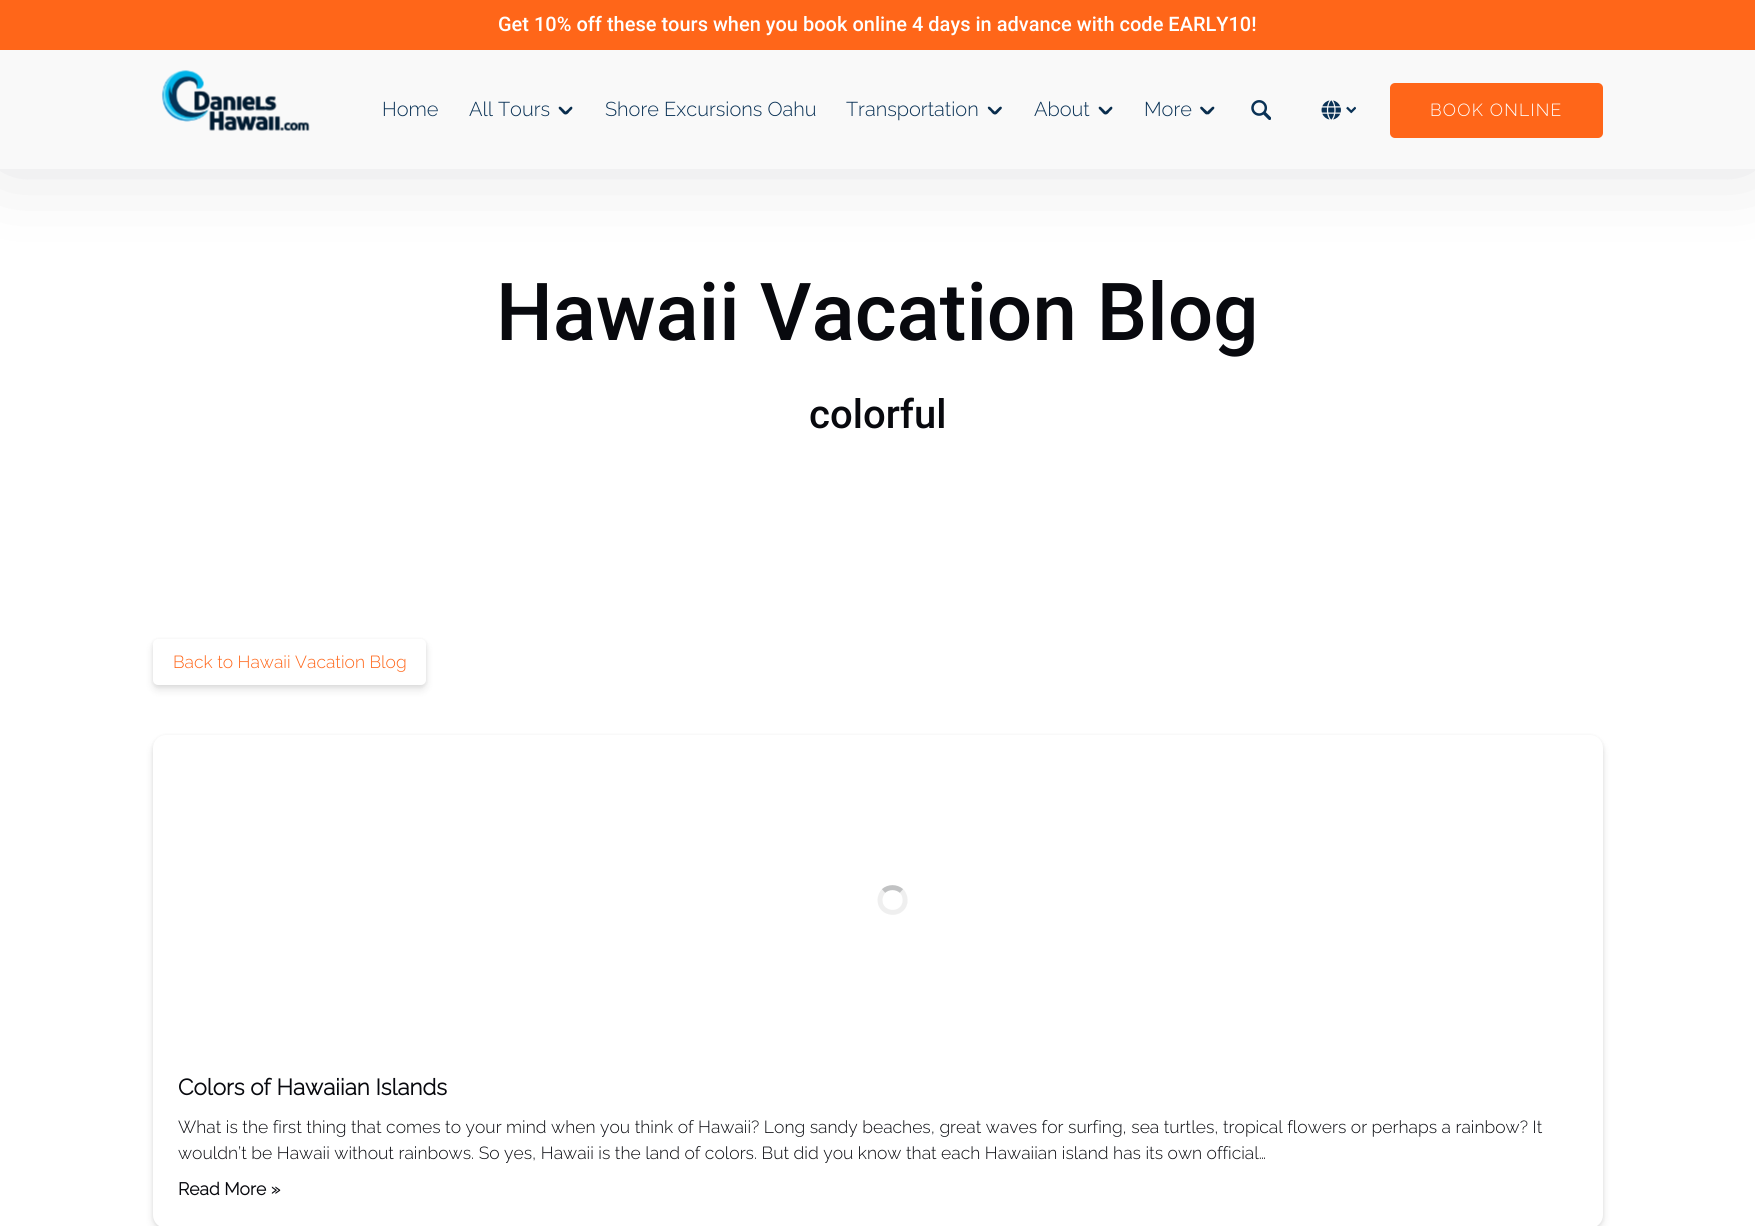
#include <cairo.h>
#include <math.h>
#include <stddef.h>

static cairo_t *c;
static void C(unsigned color){cairo_set_source_rgb(c, (color >> 16) / 255.0, (color >> 8 & 255) / 255.0, (color & 255) / 255.0);}
static void F(const char *family, double size, int italic, int bold){cairo_select_font_face(c, family, italic ? CAIRO_FONT_SLANT_ITALIC : CAIRO_FONT_SLANT_NORMAL,bold ? CAIRO_FONT_WEIGHT_BOLD : CAIRO_FONT_WEIGHT_NORMAL);cairo_set_font_size(c, size);}
static void T(double x, double y, const char *s){cairo_move_to(c, x, y);cairo_show_text(c, s);}
static void L(double x, double y, const char *s, double letter, double word){cairo_move_to(c, x, y);while (*s) {char ch[5] = {0};int n = 0;do ch[n++] = *s++; while ((*s & 0xC0) == 0x80);cairo_show_text(c, ch);cairo_rel_move_to(c, letter + word * (*ch == ' '), 0);}}
static void R(double x, double y, double w, double h){cairo_rectangle(c, x, y, w, h);cairo_fill(c);}
static void Q(double x, double y, double w, double h, double r){cairo_new_sub_path(c);cairo_arc(c, x + w - r, y + h - r, r, 0, M_PI / 2);cairo_arc(c, x + r, y + h - r, r, M_PI / 2, M_PI);cairo_arc(c, x + r, y + r, r, M_PI, 1.5 * M_PI);cairo_arc(c, x + w - r, y + r, r, 1.5 * M_PI, 2 * M_PI);cairo_close_path(c);}
static void S(double x, double y, double w, double h, double r, double blur, double alpha){cairo_push_group_with_content(c, CAIRO_CONTENT_ALPHA);cairo_set_operator(c, CAIRO_OPERATOR_SOURCE);for (int i = 15; i >= -15 && fmin(w, h) + blur * i / 3 > 0; i -= 2) {double e = blur * i / 6;cairo_set_source_rgba(c, 0, 0, 0, alpha * erfc((i - 1) / 8.5) / 2);Q(x - e, y - e, w + 2 * e, h + 2 * e, fmax(0, fmin(r + e + blur * .6, fmin(w, h) / 2 + e)));cairo_fill(c);}cairo_pattern_t *soft = cairo_pop_group(c);cairo_mask(c, soft);cairo_pattern_destroy(soft);}
static void I(const char *path, double x, double y, double w, double h){cairo_surface_t *image = cairo_image_surface_create_from_png(path);cairo_save(c);cairo_set_source_surface(c, image, x, y);cairo_rectangle(c, x, y, w, h);cairo_fill(c);cairo_restore(c);cairo_surface_destroy(image);}
int main(void) {
cairo_surface_t *surface = cairo_image_surface_create(CAIRO_FORMAT_RGB24, 1755, 1226);
c = cairo_create(surface);
cairo_font_options_t *options = cairo_font_options_create();
cairo_font_options_set_hint_metrics(options, CAIRO_HINT_METRICS_OFF);
cairo_font_options_set_hint_style(options, CAIRO_HINT_STYLE_NONE);
cairo_set_font_options(c, options);
cairo_set_miter_limit(c, 4);
C(0xffffff);
cairo_paint(c);
C(0x08090e);
S(0,-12,1755,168,0,47,.15);
C(0xf9f9f9);
R(0,50,1755,119);
C(0xff6619);
R(0,0,1755,50);
F("Roboto Medium",20,0,0);
C(0xffffff);
T(498,31,"Get 10% off these tours when you book online 4 days in advance with code EARLY10!");
I("1.png",161,70,149,61);
F("Raleway Thin",20,0,0);
C(0x0a3256);
T(382,116,"Home");
T(469,116,"All Tours");
C(0x092d4d);
cairo_new_path(c);
cairo_move_to(c,559,107);
cairo_curve_to(c,560.5,105.5,562.5,109,563.5,109.5);
cairo_curve_to(c,564,110.5,567.5,112.5,566,114);
cairo_curve_to(c,564.5,115.5,562.5,112.5,561.5,111.5);
cairo_curve_to(c,561,110.5,557.5,108.5,559,107);
cairo_close_path(c);
cairo_fill(c);
cairo_new_path(c);
cairo_move_to(c,572,107);
cairo_curve_to(c,573.5,108.5,570.5,110.5,569.5,111.5);
cairo_curve_to(c,569,112.5,566.5,115.5,565,114);
cairo_curve_to(c,563.5,112.5,567,110.5,568,109.5);
cairo_curve_to(c,568.5,109,571,105.5,572,107);
cairo_close_path(c);
cairo_fill(c);
C(0x0a3256);
T(605,116,"Shore Excursions Oahu");
T(846,116,"Transportation");
C(0x092d4d);
cairo_new_path(c);
cairo_move_to(c,988,107);
cairo_curve_to(c,989.5,105.5,992,109,992.5,109.5);
cairo_curve_to(c,993.5,110.5,996.5,112.5,995.5,114);
cairo_curve_to(c,994,115.5,991.5,112.5,991,111.5);
cairo_curve_to(c,990,110.5,987,108.5,988,107);
cairo_close_path(c);
cairo_fill(c);
cairo_new_path(c);
cairo_move_to(c,1001.5,107);
cairo_curve_to(c,1003,108.5,999.5,110.5,999,111.5);
cairo_curve_to(c,998,112.5,996,115.5,994.5,114);
cairo_curve_to(c,993,112.5,996.5,110.5,997,109.5);
cairo_curve_to(c,998,109,1000,105.5,1001.5,107);
cairo_close_path(c);
cairo_fill(c);
C(0x0a3256);
T(1034,116,"About");
C(0x092d4d);
cairo_new_path(c);
cairo_move_to(c,1099,107);
cairo_curve_to(c,1100.5,105.5,1102.5,109,1103.5,109.5);
cairo_curve_to(c,1104,110.5,1107.5,112.5,1106,114);
cairo_curve_to(c,1104.5,115.5,1102.5,112.5,1101.5,111.5);
cairo_curve_to(c,1101,110.5,1097.5,108.5,1099,107);
cairo_close_path(c);
cairo_fill(c);
cairo_new_path(c);
cairo_move_to(c,1112,107);
cairo_curve_to(c,1113.5,108.5,1110.5,110.5,1109.5,111.5);
cairo_curve_to(c,1109,112.5,1106.5,115.5,1105,114);
cairo_curve_to(c,1103.5,112.5,1107,110.5,1108,109.5);
cairo_curve_to(c,1108.5,109,1111,105.5,1112,107);
cairo_close_path(c);
cairo_fill(c);
C(0x0a3256);
T(1144,116,"More");
C(0x092d4d);
cairo_new_path(c);
cairo_move_to(c,1200.5,107);
cairo_curve_to(c,1202,105.5,1204,109,1205,109.5);
cairo_curve_to(c,1206,110.5,1209,112.5,1207.5,114);
cairo_curve_to(c,1206,115.5,1204,112.5,1203,111.5);
cairo_curve_to(c,1202.5,110.5,1199,108.5,1200.5,107);
cairo_close_path(c);
cairo_fill(c);
cairo_new_path(c);
cairo_move_to(c,1214,107);
cairo_curve_to(c,1215.5,108.5,1212,110.5,1211.5,111.5);
cairo_curve_to(c,1210.5,112.5,1208.5,115.5,1207,114);
cairo_curve_to(c,1205.5,112.5,1208.5,110.5,1209.5,109.5);
cairo_curve_to(c,1210.5,109,1212.5,105.5,1214,107);
cairo_close_path(c);
cairo_fill(c);
I("2.png",1251,100,20,20);
I("3.png",1321,100,20,20);
I("4.png",1346,106,10,8);
C(0xff6619);
Q(1390,83,213,55,5);
cairo_fill(c);
F("Raleway Thin",17.5,0,0);
C(0xffffff);
L(1430,116,"BOOK ONLINE",1.25,0);
F("Roboto Medium",80,0,0);
C(0x08090e);
T(496,340,"Hawaii Vacation Blog");
F("Roboto Medium",40,0,0);
T(809,428,"colorful");
C(0x000000);
S(153,644,273,46,5,4,.1);
S(153,640,273,46,5,2,.08);
C(0xffffff);
Q(153,639,273,46,5);
cairo_fill(c);
F("Raleway Thin",17.5,0,0);
C(0xff6619);
T(173,668,"Back to Hawaii Vacation Blog");
C(0x000000);
S(153,740,1450,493,13,4,.1);
S(153,736,1450,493,13,2,.08);
C(0xffffff);
Q(153,735,1450,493,13);
cairo_fill(c);
cairo_new_path(c);
cairo_move_to(c,883.5,891);
cairo_curve_to(c,888.5,886.5,896.5,886.5,901.5,891);
C(0xc1c2c3);
cairo_set_line_width(c,5);
cairo_stroke(c);
cairo_new_path(c);
cairo_move_to(c,901.5,891);
cairo_curve_to(c,904.5,894,905.5,898.5,905,902.5);
cairo_curve_to(c,902,917,880,915,880,900);
cairo_curve_to(c,880,896.5,881.5,893.5,883.5,891);
cairo_set_source_rgba(c,0.757,0.761,0.765,0.25);
cairo_stroke(c);
F("Raleway",22.5,0,1);
C(0x08090e);
T(178,1095,"Colors of Hawaiian Islands");
F("Raleway Thin",17.5,0,0);
T(178,1133,"What is the first thing that comes to your mind when you think of Hawaii? Long sandy beaches, great waves for surfing, sea turtles, tropical flowers or perhaps a rainbow? It");
T(178,1159,"wouldn’t be Hawaii without rainbows. So yes, Hawaii is the land of colors. But did you know that each Hawaiian island has its own official…");
F("Raleway",17.5,0,1);
T(178,1195,"Read More »");
cairo_surface_write_to_png(surface, "o.png");
cairo_font_options_destroy(options);
cairo_destroy(c);
cairo_surface_destroy(surface);
return 0;
}
